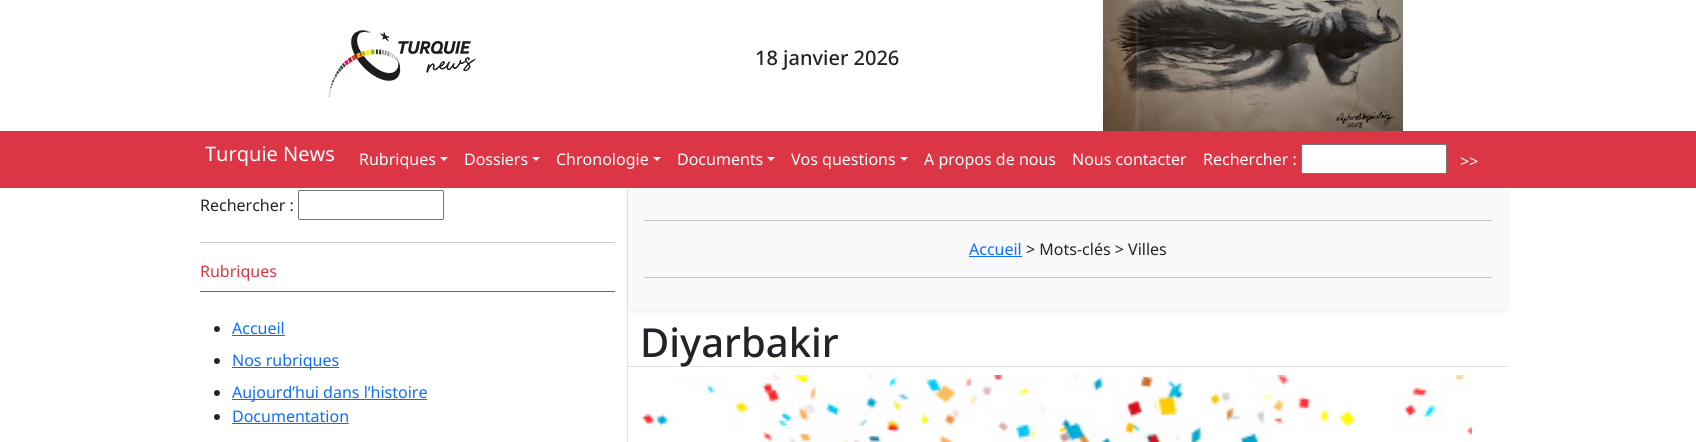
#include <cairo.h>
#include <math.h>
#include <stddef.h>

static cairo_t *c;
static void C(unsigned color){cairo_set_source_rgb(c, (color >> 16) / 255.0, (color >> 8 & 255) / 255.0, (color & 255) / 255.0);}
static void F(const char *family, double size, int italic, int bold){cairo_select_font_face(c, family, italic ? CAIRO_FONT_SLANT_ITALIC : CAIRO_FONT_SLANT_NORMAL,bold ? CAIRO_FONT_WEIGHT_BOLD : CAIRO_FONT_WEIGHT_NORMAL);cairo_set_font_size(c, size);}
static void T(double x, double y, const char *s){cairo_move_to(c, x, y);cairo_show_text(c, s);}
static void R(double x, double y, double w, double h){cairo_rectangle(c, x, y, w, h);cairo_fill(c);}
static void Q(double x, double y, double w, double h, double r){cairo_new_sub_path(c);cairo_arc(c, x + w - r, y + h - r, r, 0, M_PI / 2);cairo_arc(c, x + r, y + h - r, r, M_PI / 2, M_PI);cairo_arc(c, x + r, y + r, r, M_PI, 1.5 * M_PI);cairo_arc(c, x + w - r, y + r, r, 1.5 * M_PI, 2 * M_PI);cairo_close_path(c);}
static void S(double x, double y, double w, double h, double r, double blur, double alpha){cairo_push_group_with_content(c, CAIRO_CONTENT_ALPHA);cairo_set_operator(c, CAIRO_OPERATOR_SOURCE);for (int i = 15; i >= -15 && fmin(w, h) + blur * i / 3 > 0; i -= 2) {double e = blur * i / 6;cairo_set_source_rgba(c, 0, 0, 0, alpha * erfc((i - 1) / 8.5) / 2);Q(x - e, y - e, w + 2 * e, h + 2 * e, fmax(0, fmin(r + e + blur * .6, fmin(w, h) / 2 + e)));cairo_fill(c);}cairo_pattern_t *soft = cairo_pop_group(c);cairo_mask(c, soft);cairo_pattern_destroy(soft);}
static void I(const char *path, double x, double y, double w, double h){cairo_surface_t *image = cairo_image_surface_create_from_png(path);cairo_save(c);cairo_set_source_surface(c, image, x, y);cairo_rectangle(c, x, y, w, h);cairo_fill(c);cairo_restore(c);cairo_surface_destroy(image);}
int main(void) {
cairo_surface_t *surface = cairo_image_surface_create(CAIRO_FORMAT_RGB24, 1696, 442);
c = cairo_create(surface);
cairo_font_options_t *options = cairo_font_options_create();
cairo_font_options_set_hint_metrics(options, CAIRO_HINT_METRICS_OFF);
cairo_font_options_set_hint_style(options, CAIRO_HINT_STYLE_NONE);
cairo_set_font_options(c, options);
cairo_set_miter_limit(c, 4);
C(0xffffff);
cairo_paint(c);
I("1.png",328,30,148,67);
F("Noto Sans Medium",20,0,0);
C(0x212529);
T(755,65,"18 janvier 2026");
I("2.png",1103,0,300,131);
C(0xdee2e6);
R(627,188,1,254);
C(0x000000);
S(628,190,880,122,6,2,.07);
C(0xdc3545);
R(0,131,1696,57);
F("Noto Sans",20,0,0);
C(0xffffff);
T(205,161,"Turquie News");
F("Noto Sans",16,0,0);
T(359,165,"Rubriques");
cairo_new_path(c);
cairo_move_to(c,440,157);
cairo_line_to(c,448,157);
cairo_line_to(c,444,161);
cairo_close_path(c);
cairo_fill(c);
T(464,165,"Dossiers");
cairo_new_path(c);
cairo_move_to(c,532,157);
cairo_line_to(c,540,157);
cairo_line_to(c,536,161);
cairo_close_path(c);
cairo_fill(c);
T(556,165,"Chronologie");
cairo_new_path(c);
cairo_move_to(c,653,157);
cairo_line_to(c,661,157);
cairo_line_to(c,657,161);
cairo_close_path(c);
cairo_fill(c);
T(677,165,"Documents");
cairo_new_path(c);
cairo_move_to(c,767,157);
cairo_line_to(c,775,157);
cairo_line_to(c,771,161);
cairo_close_path(c);
cairo_fill(c);
T(791,165,"Vos questions");
cairo_new_path(c);
cairo_move_to(c,900,157);
cairo_line_to(c,908,157);
cairo_line_to(c,904,161);
cairo_close_path(c);
cairo_fill(c);
T(924,165,"A propos de nous");
T(1072,165,"Nous contacter");
T(1203,165,"Rechercher :");
Q(1301.5,144.5,145,29,1.5);
cairo_fill_preserve(c);
C(0x767676);
cairo_set_line_width(c,1);
cairo_stroke(c);
C(0xffffff);
T(1460,167,">>");
C(0x212529);
T(200,211,"Rechercher :");
Q(298.5,190.5,145,29,1.5);
C(0x767676);
cairo_stroke(c);
C(0xc8c9ca);
R(200,242,415,1);
C(0xdc3545);
R(200,291,415,1);
T(200,277,"Rubriques");
C(0x212529);
cairo_new_path(c);
cairo_arc(c,217,329,3,0,2 * M_PI);
cairo_fill(c);
C(0x0d6efd);
T(232,334,"Accueil");
R(232,335,53,1);
C(0x212529);
cairo_new_path(c);
cairo_arc(c,217,361,3,0,2 * M_PI);
cairo_fill(c);
C(0x0d6efd);
R(232,367,107,1);
T(232,366,"Nos rubriques");
C(0x212529);
cairo_new_path(c);
cairo_arc(c,217,393,3,0,2 * M_PI);
cairo_fill(c);
C(0x0d6efd);
R(232,399,195,1);
T(232,398,"Aujourd’hui dans l’histoire");
C(0x212529);
cairo_new_path(c);
cairo_arc(c,217,417,3,0,2 * M_PI);
cairo_fill(c);
C(0x0d6efd);
T(232,422,"Documentation");
R(232,423,117,1);
C(0xf8f9fa);
Q(628,188,880,122,6);
cairo_fill(c);
C(0xc2c4c6);
R(644,220,848,1);
C(0x0d6efd);
T(969,255,"Accueil");
R(969,256,53,1);
C(0x212529);
T(1026,255,"> Mots-clés > Villes");
C(0xc2c4c6);
R(644,277,848,1);
C(0xdee2e6);
R(628,366,880,1);
F("Noto Sans Medium",40,0,0);
C(0x212529);
T(640,357,"Diyarbakir");
I("3.png",640,375,832,67);
cairo_surface_write_to_png(surface, "o.png");
cairo_font_options_destroy(options);
cairo_destroy(c);
cairo_surface_destroy(surface);
return 0;
}
